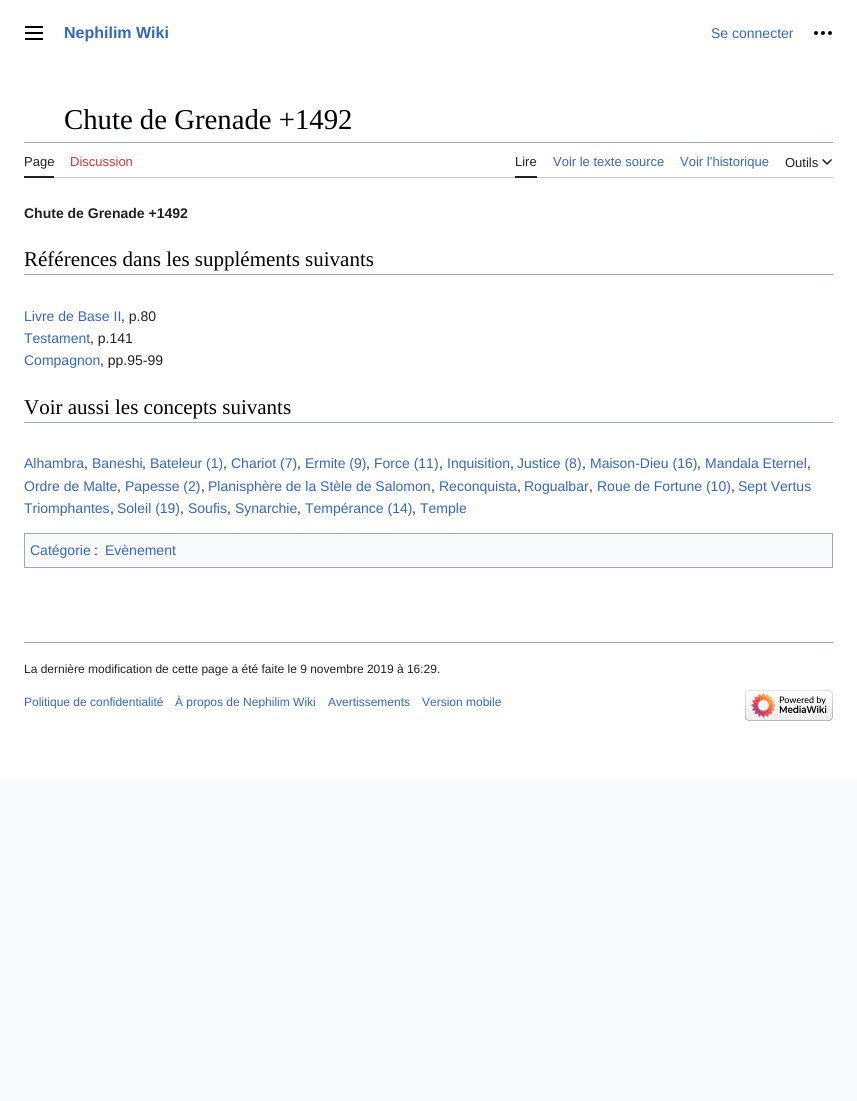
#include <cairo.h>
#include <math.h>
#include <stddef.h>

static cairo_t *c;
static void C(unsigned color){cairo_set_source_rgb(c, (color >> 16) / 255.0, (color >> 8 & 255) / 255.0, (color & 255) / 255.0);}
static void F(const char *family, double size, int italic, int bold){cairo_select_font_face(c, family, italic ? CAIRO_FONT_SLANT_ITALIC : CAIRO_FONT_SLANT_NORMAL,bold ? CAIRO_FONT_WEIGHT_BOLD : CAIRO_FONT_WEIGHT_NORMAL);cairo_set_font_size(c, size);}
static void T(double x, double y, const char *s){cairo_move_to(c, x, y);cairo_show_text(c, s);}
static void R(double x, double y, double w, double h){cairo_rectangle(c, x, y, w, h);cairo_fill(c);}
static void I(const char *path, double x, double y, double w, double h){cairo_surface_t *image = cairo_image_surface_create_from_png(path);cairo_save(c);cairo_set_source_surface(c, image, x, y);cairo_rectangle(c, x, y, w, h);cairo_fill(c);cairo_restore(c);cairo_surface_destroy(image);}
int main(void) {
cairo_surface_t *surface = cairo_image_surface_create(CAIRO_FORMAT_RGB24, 857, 1101);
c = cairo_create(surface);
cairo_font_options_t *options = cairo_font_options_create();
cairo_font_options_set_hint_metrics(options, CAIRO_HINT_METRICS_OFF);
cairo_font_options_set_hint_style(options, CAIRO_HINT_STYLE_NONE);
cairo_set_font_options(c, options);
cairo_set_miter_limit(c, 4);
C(0xf8f9fa);
cairo_paint(c);
C(0xffffff);
R(0,0,857,778);
I("1.png",25,26,18,14);
F("Liberation Sans",16,0,1);
C(0x3366cc);
T(64,38,"Nephilim Wiki");
F("Liberation Sans",14,0,0);
T(711,38,"Se connecter");
I("2.png",814,31,18,4);
C(0xa2a9b1);
R(24,142,809,1);
F("Liberation Serif",28.75,0,0);
C(0x000000);
T(64,129,"Chute de Grenade +1492");
C(0xc8ccd1);
R(54,177,779,1);
C(0x202122);
R(24,176,30,2);
F("Liberation Sans",13,0,0);
T(24,166,"Page");
C(0xd73333);
T(70,166,"Discussion");
C(0x202122);
R(515,176,22,2);
T(515,166,"Lire");
C(0x3366cc);
T(553,166,"Voir le texte source");
T(680,166,"Voir l’historique");
C(0x202122);
T(785,167,"Outils");
I("3.png",822,159,10,6);
F("Liberation Sans",14,0,1);
T(24,218,"Chute de Grenade +1492");
C(0xa2a9b1);
R(24,274,809,1);
F("Liberation Serif",21,0,0);
C(0x000000);
T(24,266,"Références dans les suppléments suivants");
F("Liberation Sans",14,0,0);
C(0x3366cc);
T(24,321,"Livre de Base II");
C(0x202122);
T(121,321,", p.80");
C(0x3366cc);
T(24,343,"Testament");
C(0x202122);
T(90,343,", p.141");
C(0x3366cc);
T(24,365,"Compagnon");
C(0x202122);
T(100,365,", pp.95-99");
C(0xa2a9b1);
R(24,422,809,1);
F("Liberation Serif",21,0,0);
C(0x000000);
T(24,414,"Voir aussi les concepts suivants");
F("Liberation Sans",14,0,0);
C(0x3366cc);
T(24,468,"Alhambra");
C(0x202122);
T(84,468,",");
C(0x3366cc);
T(92,468,"Baneshi");
C(0x202122);
T(142,468,",");
C(0x3366cc);
T(150,468,"Bateleur (1)");
C(0x202122);
T(223,468,",");
C(0x3366cc);
T(231,468,"Chariot (7)");
C(0x202122);
T(297,468,",");
C(0x3366cc);
T(305,468,"Ermite (9)");
C(0x202122);
T(366,468,",");
C(0x3366cc);
T(374,468,"Force (11)");
C(0x202122);
T(439,468,",");
C(0x3366cc);
T(447,468,"Inquisition");
C(0x202122);
T(510,468,",");
C(0x3366cc);
T(517,468,"Justice (8)");
C(0x202122);
T(582,468,",");
C(0x3366cc);
T(590,468,"Maison-Dieu (16)");
C(0x202122);
T(697,468,",");
C(0x3366cc);
T(705,468,"Mandala Eternel");
C(0x202122);
T(807,468,",");
C(0x3366cc);
T(24,491,"Ordre de Malte");
C(0x202122);
T(117,491,",");
C(0x3366cc);
T(125,491,"Papesse (2)");
C(0x202122);
T(201,491,",");
C(0x3366cc);
T(208,491,"Planisphère de la Stèle de Salomon");
C(0x202122);
T(431,491,",");
C(0x3366cc);
T(439,491,"Reconquista");
C(0x202122);
T(517,491,",");
C(0x3366cc);
T(524,491,"Rogualbar");
C(0x202122);
T(589,491,",");
C(0x3366cc);
T(597,491,"Roue de Fortune (10)");
C(0x202122);
T(731,491,",");
C(0x3366cc);
T(738,491,"Sept Vertus");
T(24,513,"Triomphantes");
C(0x202122);
T(110,513,",");
C(0x3366cc);
T(117,513,"Soleil (19)");
C(0x202122);
T(180,513,",");
C(0x3366cc);
T(188,513,"Soufis");
C(0x202122);
T(227,513,",");
C(0x3366cc);
T(235,513,"Synarchie");
C(0x202122);
T(297,513,",");
C(0x3366cc);
T(305,513,"Tempérance (14)");
C(0x202122);
T(412,513,",");
C(0x3366cc);
T(420,513,"Temple");
C(0xf8f9fa);
cairo_rectangle(c,24.5,533.5,808,34);
cairo_fill_preserve(c);
C(0xa2a9b1);
cairo_set_line_width(c,1);
cairo_stroke(c);
C(0x3366cc);
T(30,555,"Catégorie");
C(0x202122);
T(94,555,":");
C(0x3366cc);
T(105,555,"Evènement");
C(0xa2a9b1);
R(24,642,809,1);
F("Liberation Sans",12,0,0);
C(0x202122);
T(24,673,"La dernière modification de cette page a été faite le 9 novembre 2019 à 16:29.");
C(0x3366cc);
T(24,706,"Politique de confidentialité");
T(175,706,"À propos de Nephilim Wiki");
T(328,706,"Avertissements");
T(422,706,"Version mobile");
I("4.png",745,690,88,31);
cairo_surface_write_to_png(surface, "o.png");
cairo_font_options_destroy(options);
cairo_destroy(c);
cairo_surface_destroy(surface);
return 0;
}
